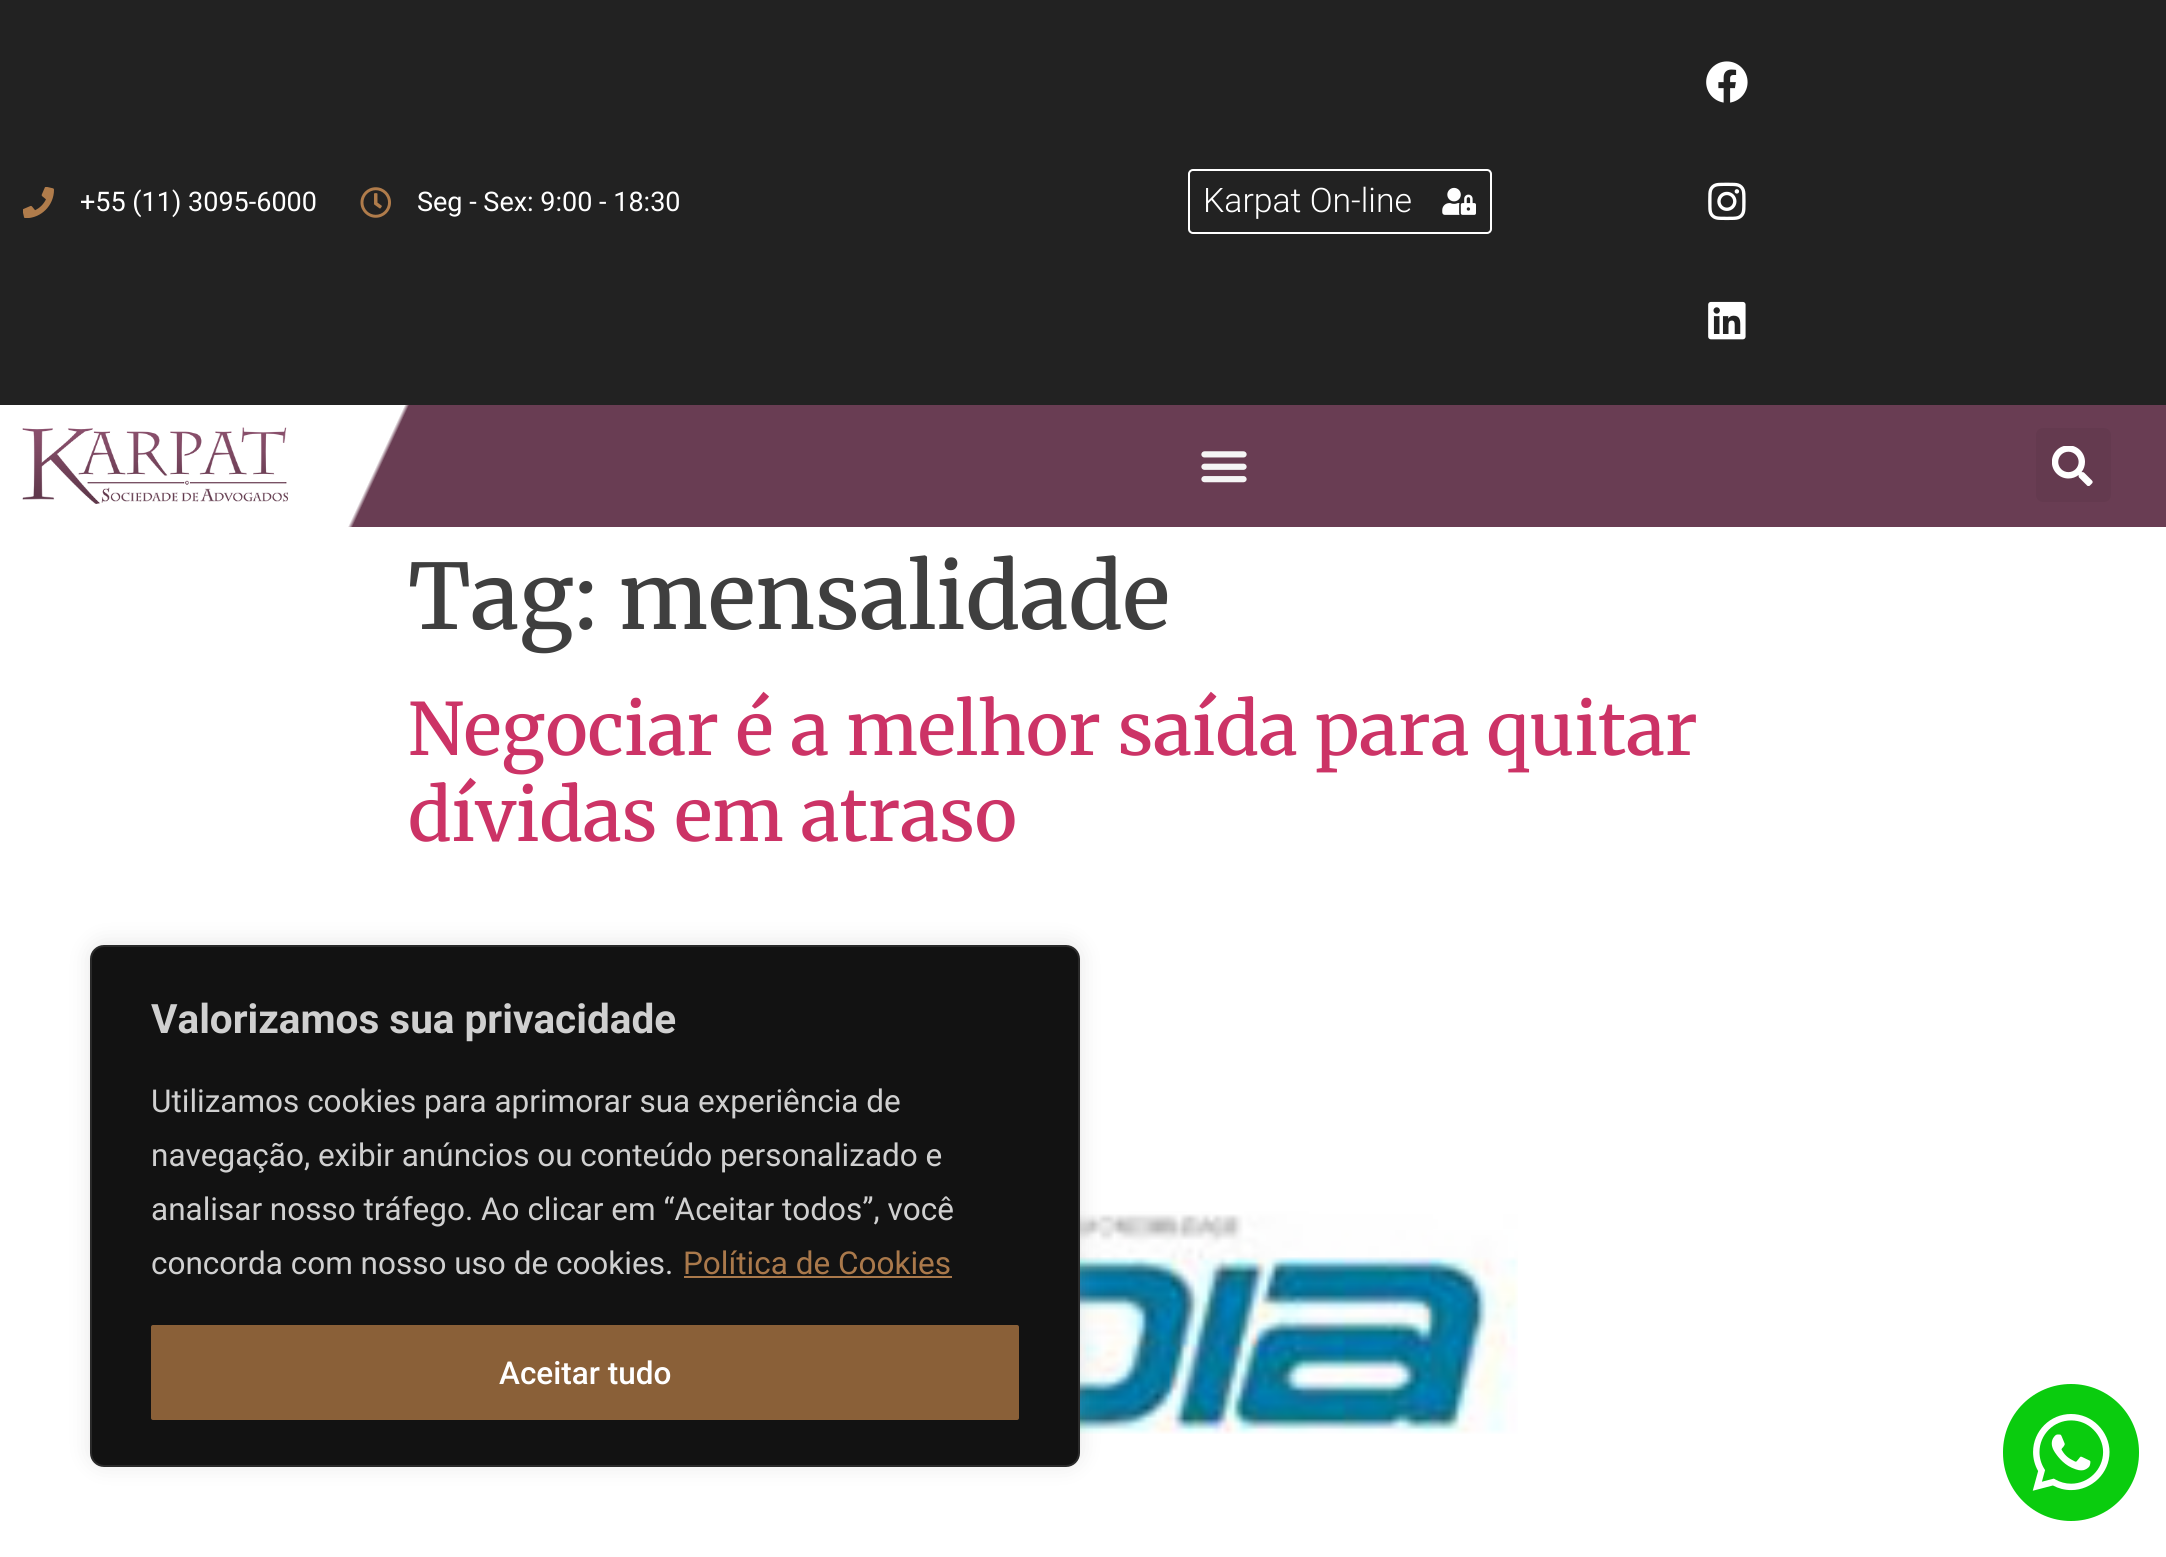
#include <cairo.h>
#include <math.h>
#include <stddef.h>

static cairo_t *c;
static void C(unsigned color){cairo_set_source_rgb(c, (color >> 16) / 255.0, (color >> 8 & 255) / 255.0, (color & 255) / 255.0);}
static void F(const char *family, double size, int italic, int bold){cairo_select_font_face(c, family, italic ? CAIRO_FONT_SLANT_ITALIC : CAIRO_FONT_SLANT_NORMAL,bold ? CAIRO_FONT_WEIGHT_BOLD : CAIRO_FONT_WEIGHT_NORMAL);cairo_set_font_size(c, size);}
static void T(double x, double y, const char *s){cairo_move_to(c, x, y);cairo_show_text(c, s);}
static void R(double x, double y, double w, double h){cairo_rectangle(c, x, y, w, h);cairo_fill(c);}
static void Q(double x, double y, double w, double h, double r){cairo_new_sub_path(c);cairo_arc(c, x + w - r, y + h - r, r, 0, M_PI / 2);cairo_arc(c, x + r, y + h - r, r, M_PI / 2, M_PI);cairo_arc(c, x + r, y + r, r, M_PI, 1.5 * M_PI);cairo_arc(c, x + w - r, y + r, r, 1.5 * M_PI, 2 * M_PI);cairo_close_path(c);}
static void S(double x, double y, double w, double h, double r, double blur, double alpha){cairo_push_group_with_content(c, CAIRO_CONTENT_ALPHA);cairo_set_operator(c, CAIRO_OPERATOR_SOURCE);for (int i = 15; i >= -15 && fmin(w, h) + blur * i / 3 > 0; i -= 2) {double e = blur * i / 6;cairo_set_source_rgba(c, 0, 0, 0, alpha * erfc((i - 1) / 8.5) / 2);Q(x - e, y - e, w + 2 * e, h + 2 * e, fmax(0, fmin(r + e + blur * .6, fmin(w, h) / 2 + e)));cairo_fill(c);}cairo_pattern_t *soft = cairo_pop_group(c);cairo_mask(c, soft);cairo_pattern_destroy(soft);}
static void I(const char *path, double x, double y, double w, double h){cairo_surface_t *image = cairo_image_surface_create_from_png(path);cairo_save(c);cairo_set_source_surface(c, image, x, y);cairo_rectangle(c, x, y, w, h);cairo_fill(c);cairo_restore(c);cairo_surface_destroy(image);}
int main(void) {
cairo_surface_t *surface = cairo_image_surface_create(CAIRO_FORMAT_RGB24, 2166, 1557);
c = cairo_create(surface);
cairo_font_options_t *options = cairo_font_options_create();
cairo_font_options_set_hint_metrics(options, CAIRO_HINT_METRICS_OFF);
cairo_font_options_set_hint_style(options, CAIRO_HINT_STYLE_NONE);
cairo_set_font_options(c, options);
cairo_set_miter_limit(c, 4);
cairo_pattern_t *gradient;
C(0xffffff);
cairo_paint(c);
C(0x222222);
R(0,0,2166,405);
I("1.png",23,187,31,31);
F("Roboto",27,0,0);
C(0xffffff);
T(80,211,"+55 (11) 3095-6000");
I("2.png",360,187,31,31);
T(417,211,"Seg - Sex: 9:00 - 18:30");
Q(1189,170,302,63,4);
cairo_stroke(c);
F("Roboto Light",33.75,0,0);
T(1203,212,"Karpat On-line");
I("3.png",1442,187,34,28);
I("4.png",1706,61,42,42);
I("5.png",1708,182,38,39);
I("6.png",1708,301,38,39);
gradient = cairo_pattern_create_linear(170,40,1997,892);
cairo_pattern_add_color_stop_rgba(gradient,.13,1,1,1,1);
cairo_pattern_add_color_stop_rgba(gradient,.13,0.412,0.239,0.325,1);
cairo_set_source(c,gradient);
cairo_pattern_destroy(gradient);
R(414,405,1752,122);
gradient = cairo_pattern_create_linear(14,376,400,556);
cairo_pattern_add_color_stop_rgba(gradient,.86,1,1,1,1);
cairo_pattern_add_color_stop_rgba(gradient,.87,0.412,0.239,0.325,1);
cairo_set_source(c,gradient);
cairo_pattern_destroy(gradient);
R(348,405,66,122);
I("7.png",22,427,266,77);
I("8.png",1201,451,46,32);
C(0x643a4f);
Q(2036,428,75,74,7);
cairo_fill(c);
I("9.png",2052,446,41,40);
F("Merriweather Medium",90,0,0);
C(0x3f3f3f);
T(408,629,"Tag: mensalidade");
F("Merriweather Medium",72,0,0);
C(0xcc3366);
T(408,755,"Negociar é a melhor saída para quitar");
T(408,841,"dívidas em atraso");
I("10.png",1080,1211,438,223);
C(0xacabab);
S(90,943,990,522,14,11,.3);
C(0x121212);
Q(91,946,988,520,13);
cairo_fill_preserve(c);
C(0x2a2a2a);
cairo_stroke(c);
F("Roboto",40.5,0,1);
C(0xd0d0d0);
T(151,1033,"Valorizamos sua privacidade");
F("Roboto",31.5,0,0);
T(151,1112,"Utilizamos cookies para aprimorar sua experiência de");
T(151,1166,"navegação, exibir anúncios ou conteúdo personalizado e");
T(151,1220,"analisar nosso tráfego. Ao clicar em “Aceitar todos”, você");
T(151,1274,"concorda com nosso uso de cookies.");
C(0xaa794b);
T(683,1274,"Política de Cookies");
R(684,1276,268,2);
C(0x8a6038);
Q(152,1326,866,93,1);
cairo_fill_preserve(c);
cairo_stroke(c);
F("Roboto Medium",31.5,0,0);
C(0xffffff);
T(499,1384,"Aceitar tudo");
C(0x0acc0e);
Q(2000.5,1381.5,141,142,70.5);
cairo_fill_preserve(c);
C(0xffffff);
cairo_set_line_width(c,5);
cairo_stroke(c);
I("11.png",2032,1414,78,77);
cairo_surface_write_to_png(surface, "o.png");
cairo_font_options_destroy(options);
cairo_destroy(c);
cairo_surface_destroy(surface);
return 0;
}
